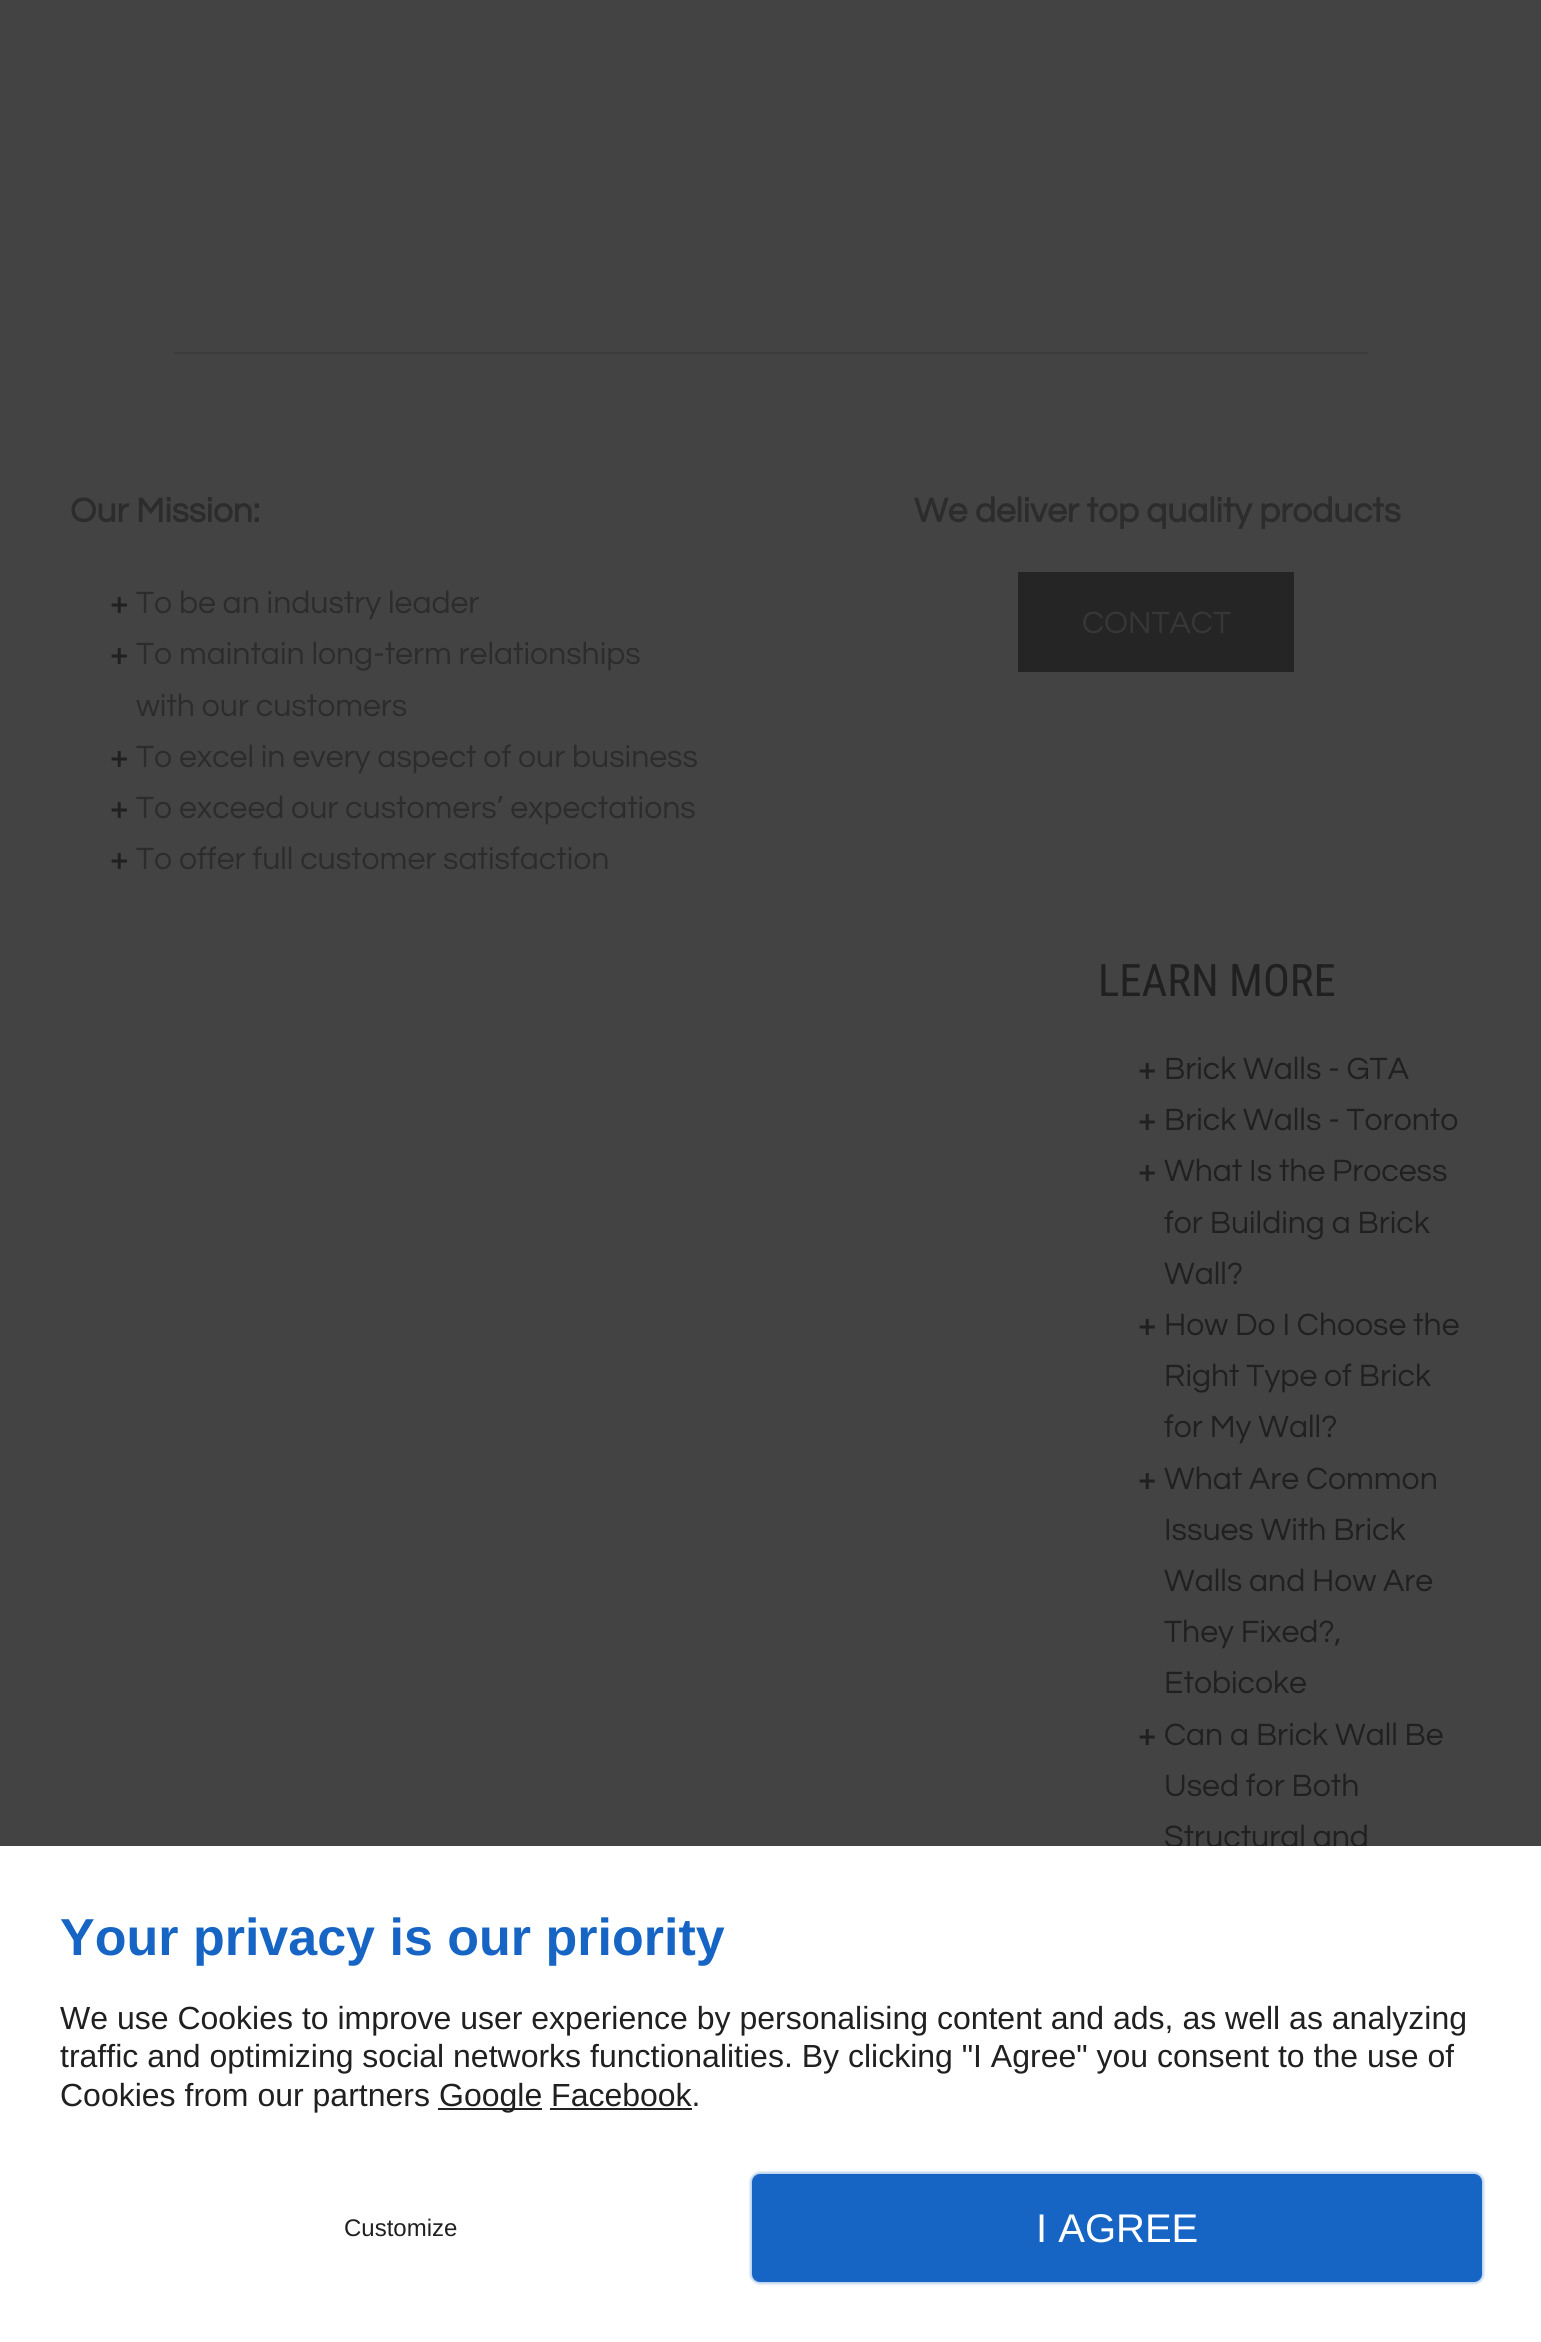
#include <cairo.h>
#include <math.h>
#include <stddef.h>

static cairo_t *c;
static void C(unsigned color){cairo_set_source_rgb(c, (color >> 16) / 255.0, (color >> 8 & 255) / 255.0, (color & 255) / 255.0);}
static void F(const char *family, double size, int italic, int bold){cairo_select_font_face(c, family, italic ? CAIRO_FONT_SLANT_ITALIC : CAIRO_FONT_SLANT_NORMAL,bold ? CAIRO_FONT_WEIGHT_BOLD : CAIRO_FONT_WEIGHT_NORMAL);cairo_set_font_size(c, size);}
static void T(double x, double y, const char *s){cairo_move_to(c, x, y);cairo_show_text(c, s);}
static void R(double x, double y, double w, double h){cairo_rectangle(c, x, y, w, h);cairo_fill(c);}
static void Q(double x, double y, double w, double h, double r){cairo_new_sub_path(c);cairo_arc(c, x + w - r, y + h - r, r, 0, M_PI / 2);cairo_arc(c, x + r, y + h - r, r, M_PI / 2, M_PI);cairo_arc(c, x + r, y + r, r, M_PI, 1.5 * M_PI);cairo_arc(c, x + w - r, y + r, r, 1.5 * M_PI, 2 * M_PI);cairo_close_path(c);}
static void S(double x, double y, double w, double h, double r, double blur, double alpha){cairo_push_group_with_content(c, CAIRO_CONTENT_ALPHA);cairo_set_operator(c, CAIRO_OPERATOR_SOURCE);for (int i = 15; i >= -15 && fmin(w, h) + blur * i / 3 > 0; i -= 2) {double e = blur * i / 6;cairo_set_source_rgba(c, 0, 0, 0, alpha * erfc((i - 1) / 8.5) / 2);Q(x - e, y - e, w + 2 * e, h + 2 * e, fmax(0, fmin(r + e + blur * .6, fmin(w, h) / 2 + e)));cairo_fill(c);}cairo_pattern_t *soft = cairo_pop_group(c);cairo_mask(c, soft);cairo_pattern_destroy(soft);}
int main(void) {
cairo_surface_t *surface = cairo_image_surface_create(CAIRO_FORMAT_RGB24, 1541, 2342);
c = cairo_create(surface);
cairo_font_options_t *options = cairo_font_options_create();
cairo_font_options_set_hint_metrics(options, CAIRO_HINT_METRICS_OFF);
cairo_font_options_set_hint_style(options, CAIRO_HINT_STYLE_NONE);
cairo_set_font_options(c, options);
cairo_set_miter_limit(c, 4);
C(0x434343);
cairo_paint(c);
C(0x3c3c3c);
R(174,352,1194,2);
F("Questrial",35.25,0,1);
C(0x2c2c2c);
T(70,522,"Our Mission:");
F("Questrial",32,0,1);
C(0x202020);
T(110,613,"+");
F("Questrial",32,0,0);
C(0x2c2c2c);
T(136,613,"To be an industry leader");
F("Questrial",32,0,1);
C(0x202020);
T(110,664,"+");
F("Questrial",32,0,0);
C(0x2c2c2c);
T(136,664,"To maintain long-term relationships");
T(136,716,"with our customers");
F("Questrial",32,0,1);
C(0x202020);
T(110,767,"+");
F("Questrial",32,0,0);
C(0x2c2c2c);
T(136,767,"To excel in every aspect of our business");
F("Questrial",32,0,1);
C(0x202020);
T(110,818,"+");
F("Questrial",32,0,0);
C(0x2c2c2c);
T(136,818,"To exceed our customers’ expectations");
F("Questrial",32,0,1);
C(0x202020);
T(110,869,"+");
F("Questrial",32,0,0);
C(0x2c2c2c);
T(136,869,"To offer full customer satisfaction");
F("Questrial",35.25,0,1);
T(914,522,"We deliver top quality products");
C(0x252525);
R(1018,572,276,100);
F("Questrial",32,0,0);
C(0x373737);
T(1082,633,"CONTACT");
F("Roboto Condensed",44.75,0,0);
C(0x202020);
T(1098,996,"LEARN MORE");
F("Questrial",32,0,1);
T(1138,1079,"+");
F("Questrial",32,0,0);
T(1164,1079,"Brick Walls - GTA");
F("Questrial",32,0,1);
T(1138,1130,"+");
F("Questrial",32,0,0);
T(1164,1130,"Brick Walls - Toronto");
F("Questrial",32,0,1);
T(1138,1181,"+");
F("Questrial",32,0,0);
T(1164,1181,"What Is the Process");
T(1164,1233,"for Building a Brick");
T(1164,1284,"Wall?");
F("Questrial",32,0,1);
T(1138,1335,"+");
F("Questrial",32,0,0);
T(1164,1335,"How Do I Choose the");
T(1164,1386,"Right Type of Brick");
T(1164,1437,"for My Wall?");
F("Questrial",32,0,1);
T(1138,1489,"+");
F("Questrial",32,0,0);
T(1164,1489,"What Are Common");
T(1164,1540,"Issues With Brick");
T(1164,1591,"Walls and How Are");
T(1164,1642,"They Fixed?,");
T(1164,1693,"Etobicoke");
F("Questrial",32,0,1);
T(1138,1745,"+");
F("Questrial",32,0,0);
T(1164,1745,"Can a Brick Wall Be");
T(1164,1796,"Used for Both");
T(1164,1847,"Structural and");
C(0xffffff);
R(0,1846,1541,496);
F("Liberation Sans",52,0,1);
C(0x1665c4);
T(60,1955,"Your privacy is our priority");
F("Liberation Sans",32,0,0);
C(0x202020);
T(60,2029,"We use Cookies to improve user experience by personalising content and ads, as well as analyzing");
T(60,2067,"traffic and optimizing social networks functionalities. By clicking \"I Agree\" you consent to the use of");
T(60,2106,"Cookies from our partners");
C(0x222222);
R(438,2108,104,2);
C(0x202020);
T(439,2106,"Google Facebook.");
C(0x222222);
R(550,2108,142,2);
F("Liberation Sans",24,0,0);
C(0x202020);
T(344,2236,"Customize");
C(0x1665c4);
S(750,2172,734,112,10,1,.3);
C(0x1665c4);
Q(754,2176,726,104,6);
cairo_fill_preserve(c);
cairo_set_line_width(c,4);
cairo_stroke(c);
F("Liberation Sans",40,0,0);
C(0xffffff);
T(1036,2242,"I AGREE");
cairo_surface_write_to_png(surface, "o.png");
cairo_font_options_destroy(options);
cairo_destroy(c);
cairo_surface_destroy(surface);
return 0;
}
